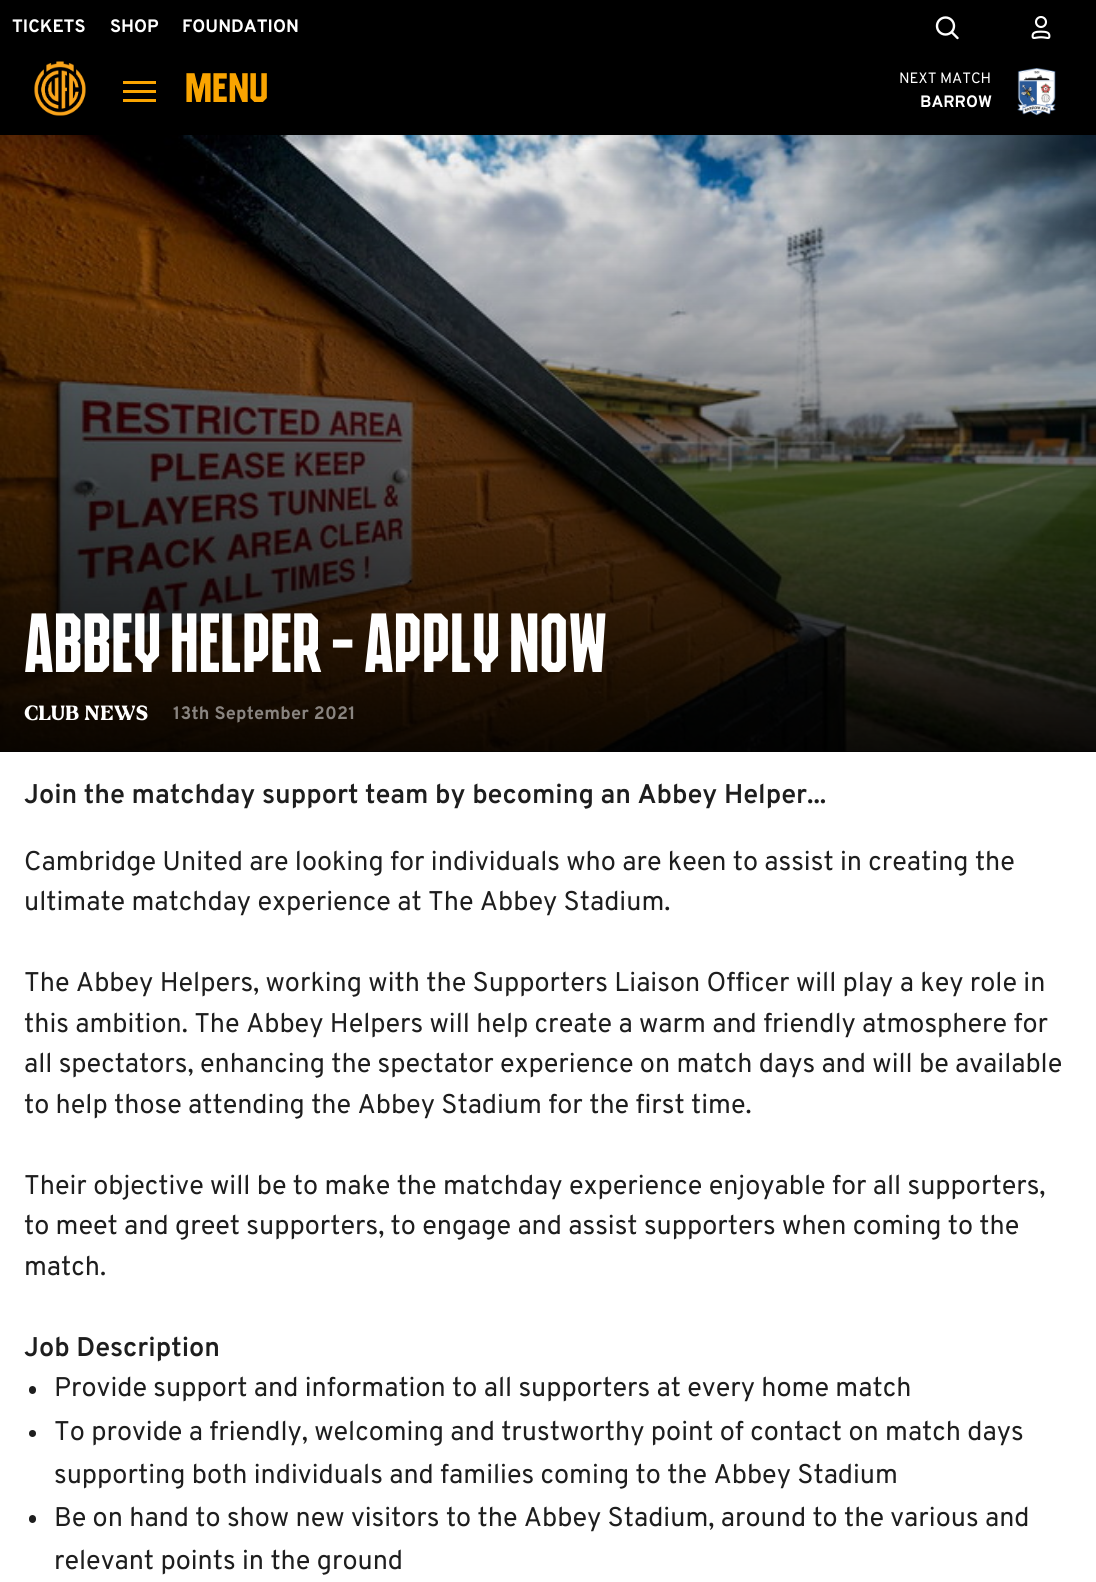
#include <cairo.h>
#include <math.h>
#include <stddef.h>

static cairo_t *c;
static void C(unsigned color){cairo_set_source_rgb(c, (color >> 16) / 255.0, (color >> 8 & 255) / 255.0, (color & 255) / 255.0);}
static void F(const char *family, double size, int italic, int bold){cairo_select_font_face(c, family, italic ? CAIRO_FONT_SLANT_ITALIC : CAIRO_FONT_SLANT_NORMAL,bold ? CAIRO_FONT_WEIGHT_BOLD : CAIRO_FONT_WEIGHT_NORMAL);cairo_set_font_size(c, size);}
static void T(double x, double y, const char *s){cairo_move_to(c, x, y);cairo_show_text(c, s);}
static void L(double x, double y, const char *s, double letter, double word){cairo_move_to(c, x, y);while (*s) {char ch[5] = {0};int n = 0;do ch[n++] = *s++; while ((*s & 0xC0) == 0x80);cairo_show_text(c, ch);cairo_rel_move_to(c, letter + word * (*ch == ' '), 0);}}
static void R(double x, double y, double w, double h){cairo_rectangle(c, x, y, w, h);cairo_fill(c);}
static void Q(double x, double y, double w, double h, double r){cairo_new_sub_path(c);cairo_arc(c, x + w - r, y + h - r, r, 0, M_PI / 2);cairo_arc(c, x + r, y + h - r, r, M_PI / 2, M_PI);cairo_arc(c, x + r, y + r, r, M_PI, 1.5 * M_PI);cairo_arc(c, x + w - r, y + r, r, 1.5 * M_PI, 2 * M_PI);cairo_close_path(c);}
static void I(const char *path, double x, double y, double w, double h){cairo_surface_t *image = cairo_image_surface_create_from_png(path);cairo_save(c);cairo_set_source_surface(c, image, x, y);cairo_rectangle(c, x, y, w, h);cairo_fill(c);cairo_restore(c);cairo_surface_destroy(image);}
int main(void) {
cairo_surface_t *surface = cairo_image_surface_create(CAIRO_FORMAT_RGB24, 1096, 1582);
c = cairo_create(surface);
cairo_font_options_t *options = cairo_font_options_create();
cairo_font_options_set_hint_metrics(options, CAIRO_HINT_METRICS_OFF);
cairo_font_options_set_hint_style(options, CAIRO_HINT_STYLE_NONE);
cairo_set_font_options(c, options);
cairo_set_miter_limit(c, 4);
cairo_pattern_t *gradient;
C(0x000000);
cairo_paint(c);
F("Overpass",18,0,1);
C(0xffffff);
T(12,32,"TICKETS");
T(110,32,"SHOP");
T(182,32,"FOUNDATION");
cairo_new_path(c);
cairo_arc(c,945.5,26,8.5,0,2 * M_PI);
cairo_set_line_width(c,2.4);
cairo_stroke(c);
cairo_new_path(c);
cairo_move_to(c,952,32.5);
cairo_line_to(c,957.5,38);
cairo_set_line_cap(c,CAIRO_LINE_CAP_ROUND);
cairo_stroke(c);
I("1.png",1031,16,20,23);
I("2.png",34,61,52,55);
C(0xfaa400);
R(123,90,33,3);
R(123,81,33,3);
R(123,99,33,3);
F("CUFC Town",36,0,0);
T(185,102,"MENU");
F("Overpass",15,0,0);
C(0xffffff);
T(899,83,"NEXT MATCH");
F("Overpass",16.5,0,1);
T(920,107,"BARROW");
I("3.png",1017,68,39,48);
C(0x111111);
R(0,751,1096,1);
I("4.png",0,135,1096,617);
gradient = cairo_pattern_create_linear(548,135,548,752);
cairo_pattern_add_color_stop_rgba(gradient,0,0,0,0,0);
cairo_pattern_add_color_stop_rgba(gradient,1,0,0,0,.9);
cairo_set_source(c,gradient);
cairo_pattern_destroy(gradient);
R(0,150,1096,602);
F("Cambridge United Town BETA",73.25,0,0);
C(0xffffff);
T(24,672,"ABBEY HELPER - APPLY NOW");
F("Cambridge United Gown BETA",18,0,0);
L(24,720,"Club News",.25,0);
F("Overpass",18,0,1);
C(0x898480);
L(173,719,"13th September 2021",.25,0);
C(0xffffff);
R(0,752,1096,830);
F("Overpass SemiBold",27,0,0);
C(0x1e1e1e);
T(24,803,"Join the matchday support team by becoming an Abbey Helper...");
F("Overpass",27,0,0);
T(24,870,"Cambridge United are looking for individuals who are keen to assist in creating the");
T(24,910,"ultimate matchday experience at The Abbey Stadium.");
T(24,991,"The Abbey Helpers, working with the Supporters Liaison Officer will play a key role in");
T(24,1032,"this ambition. The Abbey Helpers will help create a warm and friendly atmosphere for");
T(24,1072,"all spectators, enhancing the spectator experience on match days and will be available");
T(24,1113,"to help those attending the Abbey Stadium for the first time.");
T(24,1194,"Their objective will be to make the matchday experience enjoyable for all supporters,");
T(24,1234,"to meet and greet supporters, to engage and assist supporters when coming to the");
T(24,1275,"match.");
F("Overpass SemiBold",27,0,0);
T(24,1356,"Job Description");
Q(29,1386,7,8,3.5);
cairo_fill(c);
F("Overpass",27,0,0);
T(54,1396,"Provide support and information to all supporters at every home match");
cairo_new_path(c);
cairo_arc(c,32.5,1433.5,3.5,0,2 * M_PI);
cairo_fill(c);
T(54,1440,"To provide a friendly, welcoming and trustworthy point of contact on match days");
T(54,1483,"supporting both individuals and families coming to the Abbey Stadium");
Q(29,1515,7,8,3.5);
cairo_fill(c);
T(54,1526,"Be on hand to show new visitors to the Abbey Stadium, around to the various and");
T(54,1569,"relevant points in the ground");
cairo_surface_write_to_png(surface, "o.png");
cairo_font_options_destroy(options);
cairo_destroy(c);
cairo_surface_destroy(surface);
return 0;
}
